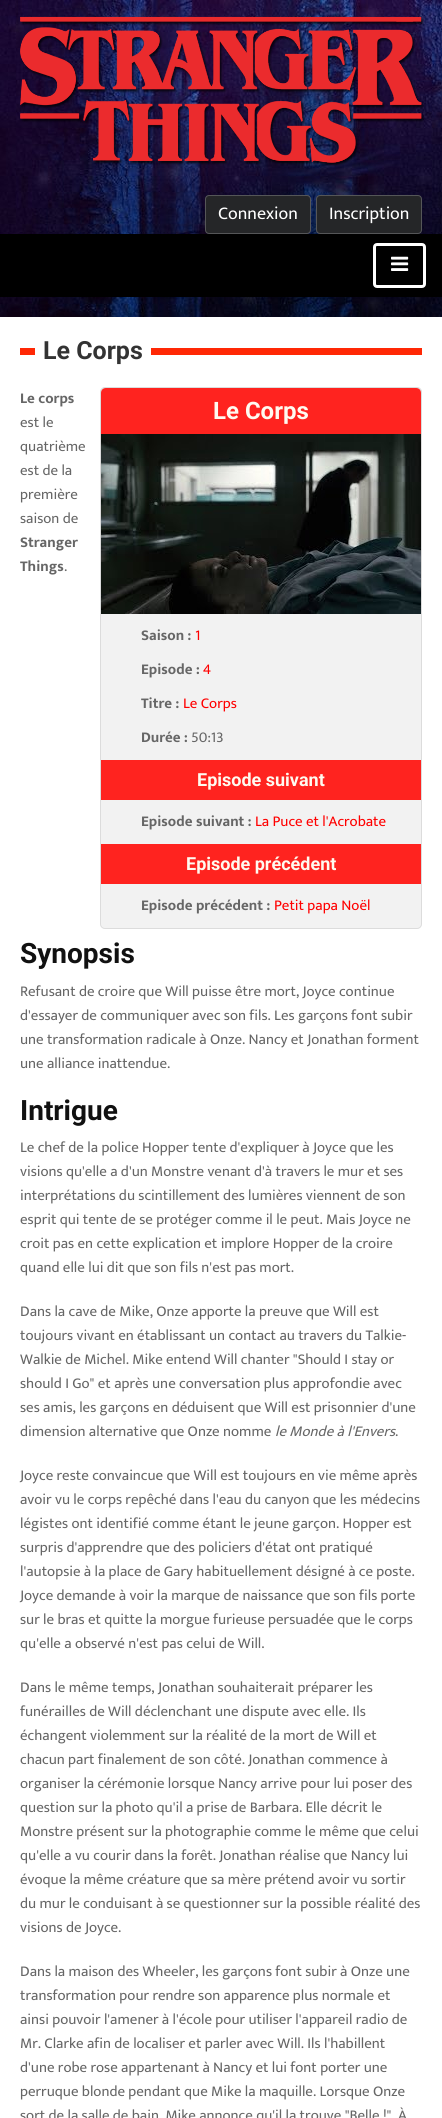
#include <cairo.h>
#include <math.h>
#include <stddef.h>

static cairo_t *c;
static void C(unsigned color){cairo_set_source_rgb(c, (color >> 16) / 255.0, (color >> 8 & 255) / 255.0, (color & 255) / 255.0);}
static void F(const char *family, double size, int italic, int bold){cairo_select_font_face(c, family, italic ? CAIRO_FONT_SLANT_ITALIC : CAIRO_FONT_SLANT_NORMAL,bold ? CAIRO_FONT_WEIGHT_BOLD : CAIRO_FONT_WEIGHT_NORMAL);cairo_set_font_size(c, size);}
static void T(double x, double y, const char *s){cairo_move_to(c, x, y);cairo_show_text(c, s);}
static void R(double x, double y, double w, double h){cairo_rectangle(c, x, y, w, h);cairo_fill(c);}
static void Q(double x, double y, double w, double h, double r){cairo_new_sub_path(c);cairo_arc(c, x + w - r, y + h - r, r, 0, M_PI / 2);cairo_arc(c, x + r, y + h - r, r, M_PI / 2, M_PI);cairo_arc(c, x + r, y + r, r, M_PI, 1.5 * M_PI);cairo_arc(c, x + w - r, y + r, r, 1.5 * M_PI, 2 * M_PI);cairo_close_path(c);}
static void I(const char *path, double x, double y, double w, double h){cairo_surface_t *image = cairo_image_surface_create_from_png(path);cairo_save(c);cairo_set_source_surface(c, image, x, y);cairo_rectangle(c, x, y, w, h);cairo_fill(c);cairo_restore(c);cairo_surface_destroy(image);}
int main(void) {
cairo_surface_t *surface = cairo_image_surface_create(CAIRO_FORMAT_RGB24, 442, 2118);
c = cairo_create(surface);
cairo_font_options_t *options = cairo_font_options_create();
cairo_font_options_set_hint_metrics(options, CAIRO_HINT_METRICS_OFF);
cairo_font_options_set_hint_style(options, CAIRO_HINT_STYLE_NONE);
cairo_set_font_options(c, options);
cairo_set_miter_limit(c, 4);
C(0xffffff);
cairo_paint(c);
I("1.png",0,0,442,317);
I("2.png",20,16,404,150);
C(0x252628);
Q(205.5,195.5,105,38,3.5);
cairo_fill_preserve(c);
C(0x555658);
cairo_set_line_width(c,1);
cairo_stroke(c);
F("Ek Mukta",18,0,0);
C(0xffffff);
T(218,219,"Connexion");
C(0x252628);
Q(316.5,195.5,105,38,3.5);
cairo_fill_preserve(c);
C(0x555658);
cairo_stroke(c);
C(0xffffff);
T(329,219,"Inscription");
C(0x000000);
R(0,234,442,63);
Q(374.5,244.5,50,42,2.5);
C(0xffffff);
cairo_set_line_width(c,3);
cairo_stroke(c);
I("3.png",391,256,18,15);
C(0xff2805);
R(20,348,402,7);
C(0xffffff);
R(35,348,116,7);
F("Roboto",25,0,1);
C(0x333333);
T(43,359,"Le Corps");
F("Ek Mukta",15,0,1);
C(0x666666);
T(20,403,"Le corps");
F("Ek Mukta",15,0,0);
T(20,427,"est le");
T(20,451,"quatrième");
T(20,475,"est de la");
T(20,499,"première");
T(20,523,"saison de");
F("Ek Mukta",15,0,1);
T(20,547,"Stranger");
T(20,571,"Things");
F("Ek Mukta",15,0,0);
T(64,571,".");
F("Roboto",28,0,1);
C(0x111111);
T(20,963,"Synopsis");
F("Ek Mukta",15,0,0);
C(0x666666);
T(20,996,"Refusant de croire que Will puisse être mort, Joyce continue");
T(20,1020,"d'essayer de communiquer avec son fils. Les garçons font subir");
T(20,1044,"une transformation radicale à Onze. Nancy et Jonathan forment");
T(20,1068,"une alliance inattendue.");
F("Roboto",28,0,1);
C(0x111111);
T(20,1120,"Intrigue");
F("Ek Mukta",15,0,0);
C(0x666666);
T(20,1152,"Le chef de la police Hopper tente d'expliquer à Joyce que les");
T(20,1176,"visions qu'elle a d'un Monstre venant d'à travers le mur et ses");
T(20,1200,"interprétations du scintillement des lumières viennent de son");
T(20,1224,"esprit qui tente de se protéger comme il le peut. Mais Joyce ne");
T(20,1248,"croit pas en cette explication et implore Hopper de la croire");
T(20,1272,"quand elle lui dit que son fils n'est pas mort.");
T(20,1316,"Dans la cave de Mike, Onze apporte la preuve que Will est");
T(20,1340,"toujours vivant en établissant un contact au travers du Talkie-");
T(20,1364,"Walkie de Michel. Mike entend Will chanter \"Should I stay or");
T(20,1388,"should I Go\" et après une conversation plus approfondie avec");
T(20,1412,"ses amis, les garçons en déduisent que Will est prisonnier d'une");
T(20,1436,"dimension alternative que Onze nomme");
F("Ek Mukta",15,1,0);
T(275,1436,"le Monde à l'Envers");
F("Ek Mukta",15,0,0);
T(395,1436,".");
T(20,1480,"Joyce reste convaincue que Will est toujours en vie même après");
T(20,1504,"avoir vu le corps repêché dans l'eau du canyon que les médecins");
T(20,1528,"légistes ont identifié comme étant le jeune garçon. Hopper est");
T(20,1552,"surpris d'apprendre que des policiers d'état ont pratiqué");
T(20,1576,"l'autopsie à la place de Gary habituellement désigné à ce poste.");
T(20,1600,"Joyce demande à voir la marque de naissance que son fils porte");
T(20,1624,"sur le bras et quitte la morgue furieuse persuadée que le corps");
T(20,1648,"qu'elle a observé n'est pas celui de Will.");
T(20,1692,"Dans le même temps, Jonathan souhaiterait préparer les");
T(20,1716,"funérailles de Will déclenchant une dispute avec elle. Ils");
T(20,1740,"échangent violemment sur la réalité de la mort de Will et");
T(20,1764,"chacun part finalement de son côté. Jonathan commence à");
T(20,1788,"organiser la cérémonie lorsque Nancy arrive pour lui poser des");
T(20,1812,"question sur la photo qu'il a prise de Barbara. Elle décrit le");
T(20,1836,"Monstre présent sur la photographie comme le même que celui");
T(20,1860,"qu'elle a vu courir dans la forêt. Jonathan réalise que Nancy lui");
T(20,1884,"évoque la même créature que sa mère prétend avoir vu sortir");
T(20,1908,"du mur le conduisant à se questionner sur la possible réalité des");
T(20,1932,"visions de Joyce.");
T(20,1976,"Dans la maison des Wheeler, les garçons font subir à Onze une");
T(20,2000,"transformation pour rendre son apparence plus normale et");
T(20,2024,"ainsi pouvoir l'amener à l'école pour utiliser l'appareil radio de");
T(20,2048,"Mr. Clarke afin de localiser et parler avec Will. Ils l'habillent");
T(20,2072,"d'une robe rose appartenant à Nancy et lui font porter une");
T(20,2096,"perruque blonde pendant que Mike la maquille. Lorsque Onze");
T(20,2120,"sort de la salle de bain, Mike annonce qu'il la trouve \"Belle !\". À");
C(0xf2f2f2);
Q(100.5,387.5,321,541,4.5);
cairo_fill_preserve(c);
C(0xdcdcdc);
cairo_set_line_width(c,1);
cairo_stroke(c);
C(0xff231f);
cairo_new_path(c);
cairo_move_to(c,106,388);
cairo_line_to(c,416,388);
cairo_curve_to(c,419,388,421,390,421,393);
cairo_line_to(c,421,434);
cairo_line_to(c,101,434);
cairo_line_to(c,101,393);
cairo_curve_to(c,101,390,103,388,106,388);
cairo_close_path(c);
cairo_fill(c);
F("Roboto",24,0,1);
C(0xfffaf0);
T(213,419,"Le Corps");
I("4.png",101,434,320,180);
F("Ek Mukta",15,0,1);
C(0x666666);
T(141,640,"Saison :");
F("Ek Mukta",15,0,0);
C(0xff0000);
T(195,640,"1");
F("Ek Mukta",15,0,1);
C(0x666666);
T(141,674,"Episode :");
F("Ek Mukta",15,0,0);
C(0xff0000);
T(203,674,"4");
F("Ek Mukta",15,0,1);
C(0x666666);
T(141,708,"Titre :");
F("Ek Mukta",15,0,0);
C(0xff0000);
T(183,708,"Le Corps");
F("Ek Mukta",15,0,1);
C(0x666666);
T(141,742,"Durée :");
F("Ek Mukta",15,0,0);
T(191,742,"50:13");
C(0xff231f);
R(101,760,320,40);
F("Roboto",18,0,1);
C(0xfffaf0);
T(197,786,"Episode suivant");
F("Ek Mukta",15,0,1);
C(0x666666);
T(141,826,"Episode suivant :");
F("Ek Mukta",15,0,0);
C(0xff0000);
T(255,826,"La Puce et l'Acrobate");
C(0xff231f);
R(101,844,320,40);
F("Roboto",18,0,1);
C(0xfffaf0);
T(186,870,"Episode précédent");
F("Ek Mukta",15,0,1);
C(0x666666);
T(141,910,"Episode précédent :");
F("Ek Mukta",15,0,0);
C(0xff0000);
T(274,910,"Petit papa Noël");
cairo_surface_write_to_png(surface, "o.png");
cairo_font_options_destroy(options);
cairo_destroy(c);
cairo_surface_destroy(surface);
return 0;
}
